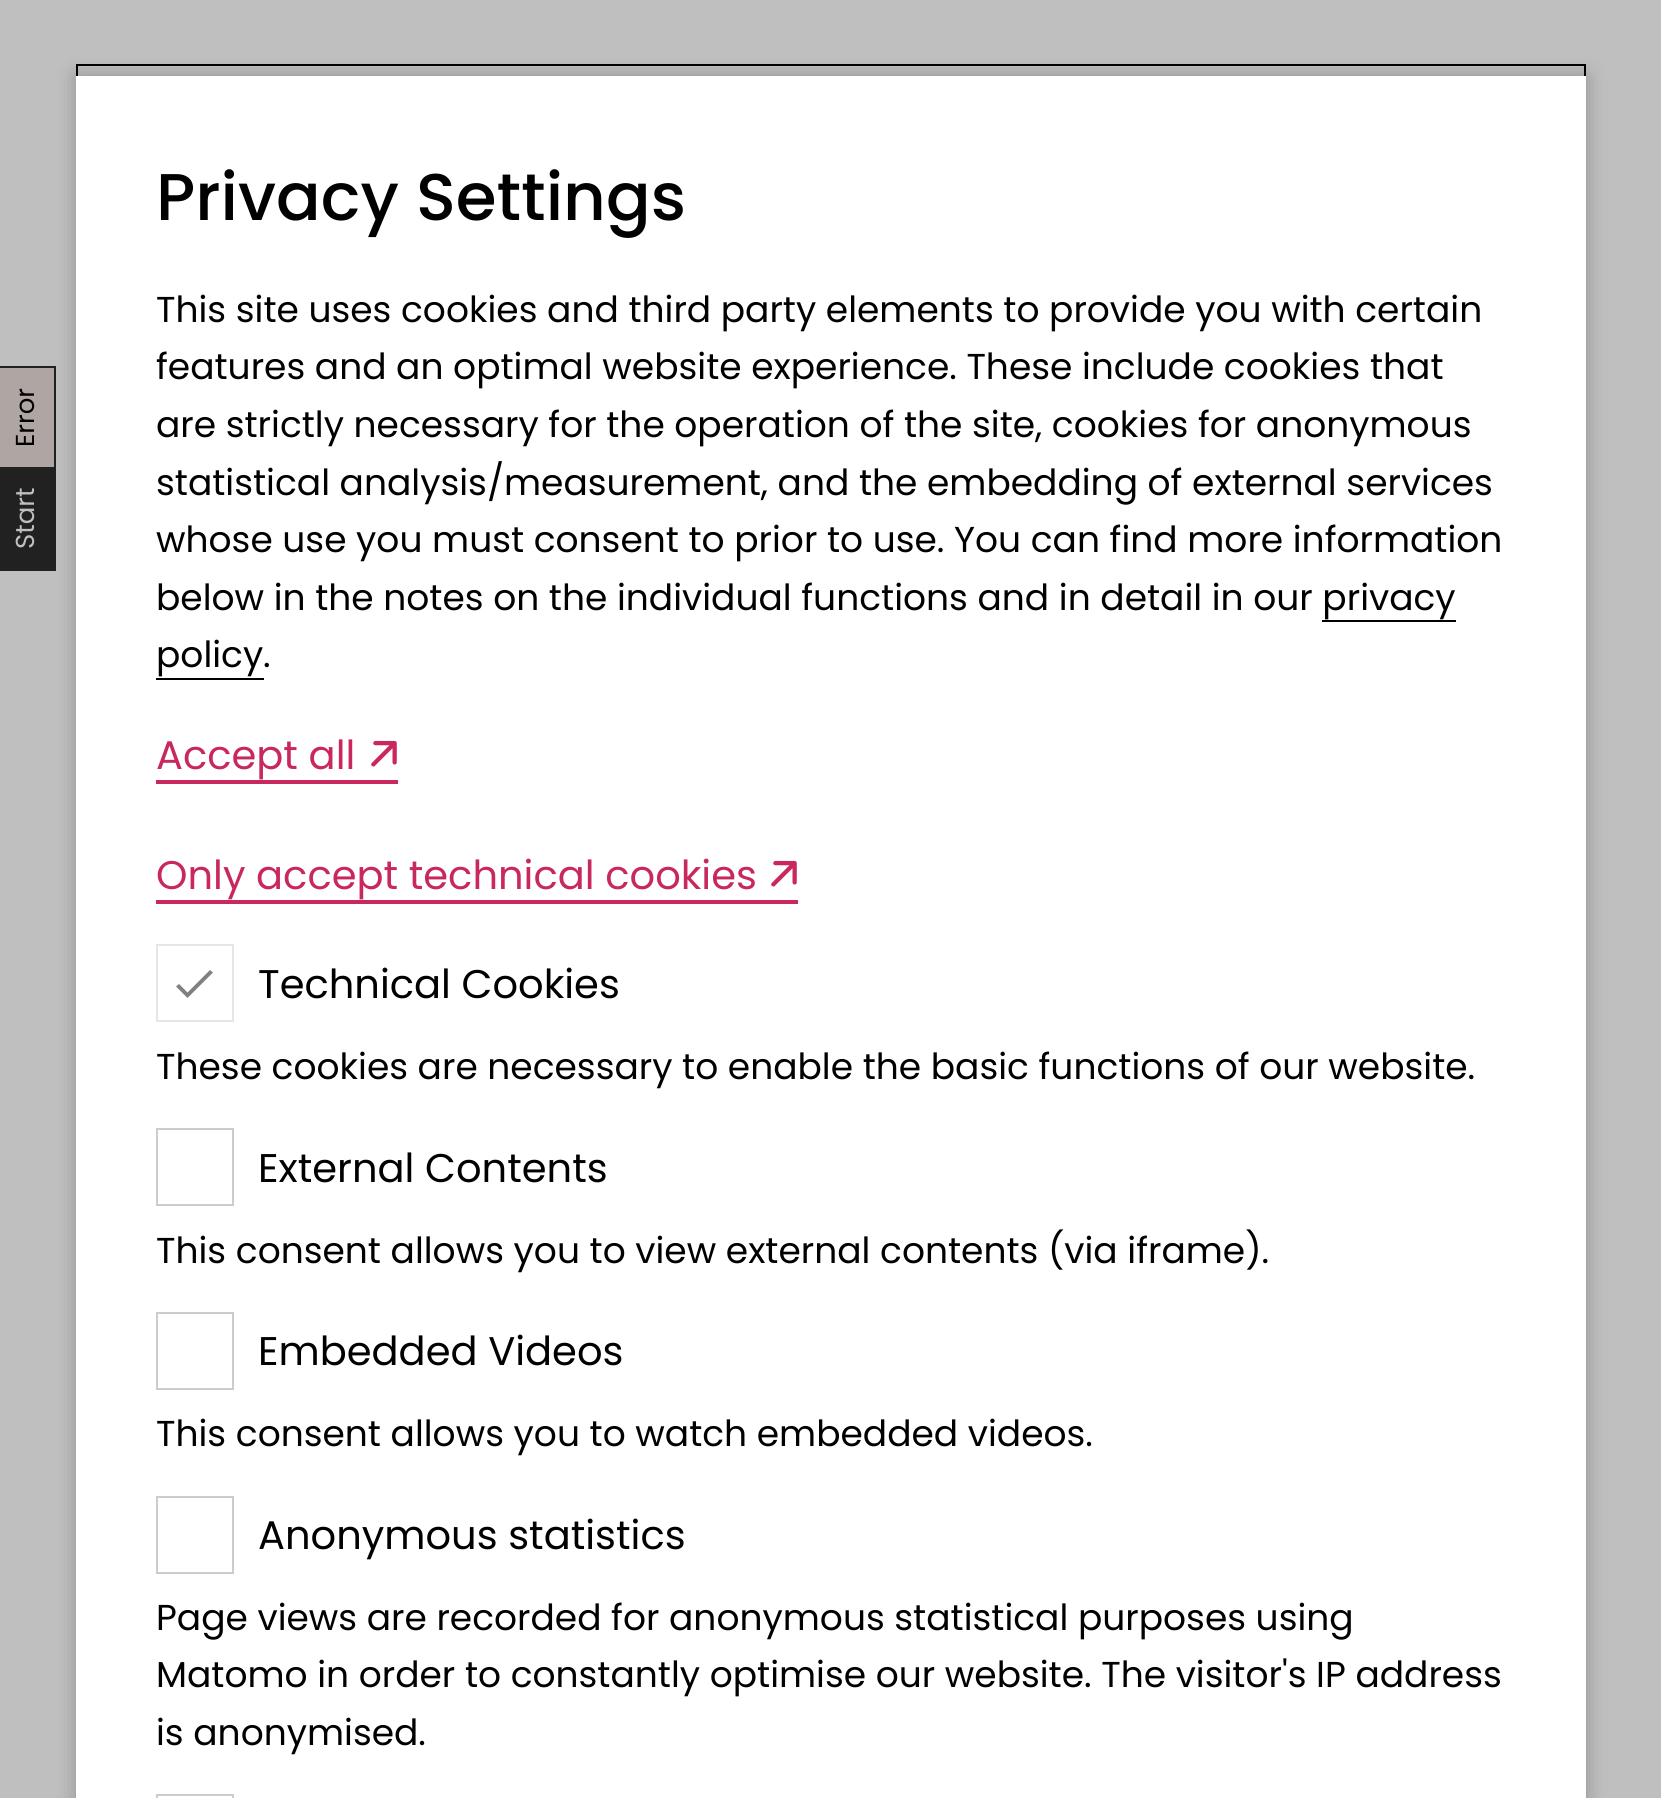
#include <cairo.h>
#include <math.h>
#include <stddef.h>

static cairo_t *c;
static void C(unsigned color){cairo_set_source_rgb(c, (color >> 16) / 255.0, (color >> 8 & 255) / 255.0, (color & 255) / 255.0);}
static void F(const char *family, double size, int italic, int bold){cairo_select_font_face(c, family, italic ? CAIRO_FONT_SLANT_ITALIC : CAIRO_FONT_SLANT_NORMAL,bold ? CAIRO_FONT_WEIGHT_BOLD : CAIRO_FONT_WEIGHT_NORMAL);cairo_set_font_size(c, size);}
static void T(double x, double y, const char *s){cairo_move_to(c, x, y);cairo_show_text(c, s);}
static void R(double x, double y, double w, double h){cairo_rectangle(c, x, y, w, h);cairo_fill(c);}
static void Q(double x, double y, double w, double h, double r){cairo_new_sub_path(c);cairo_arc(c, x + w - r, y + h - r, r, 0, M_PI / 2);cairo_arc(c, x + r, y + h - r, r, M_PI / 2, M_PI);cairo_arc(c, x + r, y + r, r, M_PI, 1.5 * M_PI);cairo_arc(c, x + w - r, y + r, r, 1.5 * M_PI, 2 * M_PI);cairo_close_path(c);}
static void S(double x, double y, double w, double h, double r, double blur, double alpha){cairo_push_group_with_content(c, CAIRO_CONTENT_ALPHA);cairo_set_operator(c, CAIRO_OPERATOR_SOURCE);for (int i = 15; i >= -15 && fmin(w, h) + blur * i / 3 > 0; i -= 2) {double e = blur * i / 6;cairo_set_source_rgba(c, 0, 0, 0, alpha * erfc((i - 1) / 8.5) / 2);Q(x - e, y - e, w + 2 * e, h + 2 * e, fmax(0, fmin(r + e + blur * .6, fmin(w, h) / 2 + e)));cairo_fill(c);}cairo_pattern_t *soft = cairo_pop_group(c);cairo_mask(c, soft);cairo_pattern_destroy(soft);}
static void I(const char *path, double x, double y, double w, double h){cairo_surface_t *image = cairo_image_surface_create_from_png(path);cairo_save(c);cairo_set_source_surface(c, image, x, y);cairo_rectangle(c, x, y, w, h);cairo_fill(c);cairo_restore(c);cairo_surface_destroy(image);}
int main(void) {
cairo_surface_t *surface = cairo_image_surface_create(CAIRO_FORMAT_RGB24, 1661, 1798);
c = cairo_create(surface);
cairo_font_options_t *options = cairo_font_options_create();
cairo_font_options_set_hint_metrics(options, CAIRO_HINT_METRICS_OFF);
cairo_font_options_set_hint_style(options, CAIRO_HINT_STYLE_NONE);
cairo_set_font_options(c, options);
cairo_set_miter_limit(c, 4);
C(0xbfbfbf);
cairo_paint(c);
cairo_rectangle(c,77,65,1508,108);
C(0x000000);
cairo_stroke(c);
C(0x212121);
R(0,366,56,205);
C(0xafa6a3);
R(0,368,54,99);
F("Poppins",26,0,0);
C(0x000000);
cairo_save(c);
cairo_translate(c,34,447);
cairo_rotate(c,-90 * M_PI / 180);
T(0,0,"Error");
cairo_restore(c);
C(0xbfbfbf);
cairo_save(c);
cairo_translate(c,34,549);
cairo_rotate(c,-90 * M_PI / 180);
T(0,0,"Start");
cairo_restore(c);
C(0x000000);
S(76,76,1510,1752,0,10,.25);
C(0xffffff);
R(76,76,1510,1722);
F("Poppins Medium",66,0,0);
C(0x000000);
T(156,220,"Privacy Settings");
F("Poppins",36,0,0);
T(156,322,"This site uses cookies and third party elements to provide you with certain");
T(156,379,"features and an optimal website experience. These include cookies that");
T(156,437,"are strictly necessary for the operation of the site, cookies for anonymous");
T(156,495,"statistical analysis/measurement, and the embedding of external services");
T(156,552,"whose use you must consent to prior to use. You can find more information");
T(156,610,"below in the notes on the individual functions and in detail in our privacy");
T(156,667,"policy");
R(1322,620,134,2);
R(156,678,108,2);
T(263,667,".");
F("Poppins",40,0,0);
C(0xc8285e);
T(156,769,"Accept all");
I("1.png",371,740,26,27);
R(156,780,242,4);
T(156,889,"Only accept technical cookies");
I("1.png",771,860,26,27);
R(156,900,642,4);
cairo_rectangle(c,157,945,76,76);
C(0xe6e6e6);
cairo_stroke(c);
C(0x808080);
cairo_new_path(c);
cairo_move_to(c,187.5,998);
cairo_line_to(c,176,986.5);
cairo_line_to(c,179,984);
cairo_line_to(c,187.5,992.5);
cairo_line_to(c,210,970);
cairo_line_to(c,213,972.5);
cairo_close_path(c);
cairo_fill(c);
C(0x000000);
T(258,998,"Technical Cookies");
F("Poppins",36,0,0);
T(156,1079,"These cookies are necessary to enable the basic functions of our website.");
cairo_rectangle(c,157,1129,76,76);
C(0xcccccc);
cairo_stroke(c);
F("Poppins",40,0,0);
C(0x000000);
T(258,1182,"External Contents");
F("Poppins",36,0,0);
T(156,1263,"This consent allows you to view external contents (via iframe).");
cairo_rectangle(c,157,1313,76,76);
C(0xcccccc);
cairo_stroke(c);
F("Poppins",40,0,0);
C(0x000000);
T(258,1365,"Embedded Videos");
F("Poppins",36,0,0);
T(156,1446,"This consent allows you to watch embedded videos.");
cairo_rectangle(c,157,1497,76,76);
C(0xcccccc);
cairo_stroke(c);
F("Poppins",40,0,0);
C(0x000000);
T(258,1549,"Anonymous statistics");
F("Poppins",36,0,0);
T(156,1630,"Page views are recorded for anonymous statistical purposes using");
T(156,1687,"Matomo in order to constantly optimise our website. The visitor's IP address");
T(156,1745,"is anonymised.");
cairo_rectangle(c,157,1795,76,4);
C(0xcccccc);
cairo_stroke(c);
cairo_surface_write_to_png(surface, "o.png");
cairo_font_options_destroy(options);
cairo_destroy(c);
cairo_surface_destroy(surface);
return 0;
}
